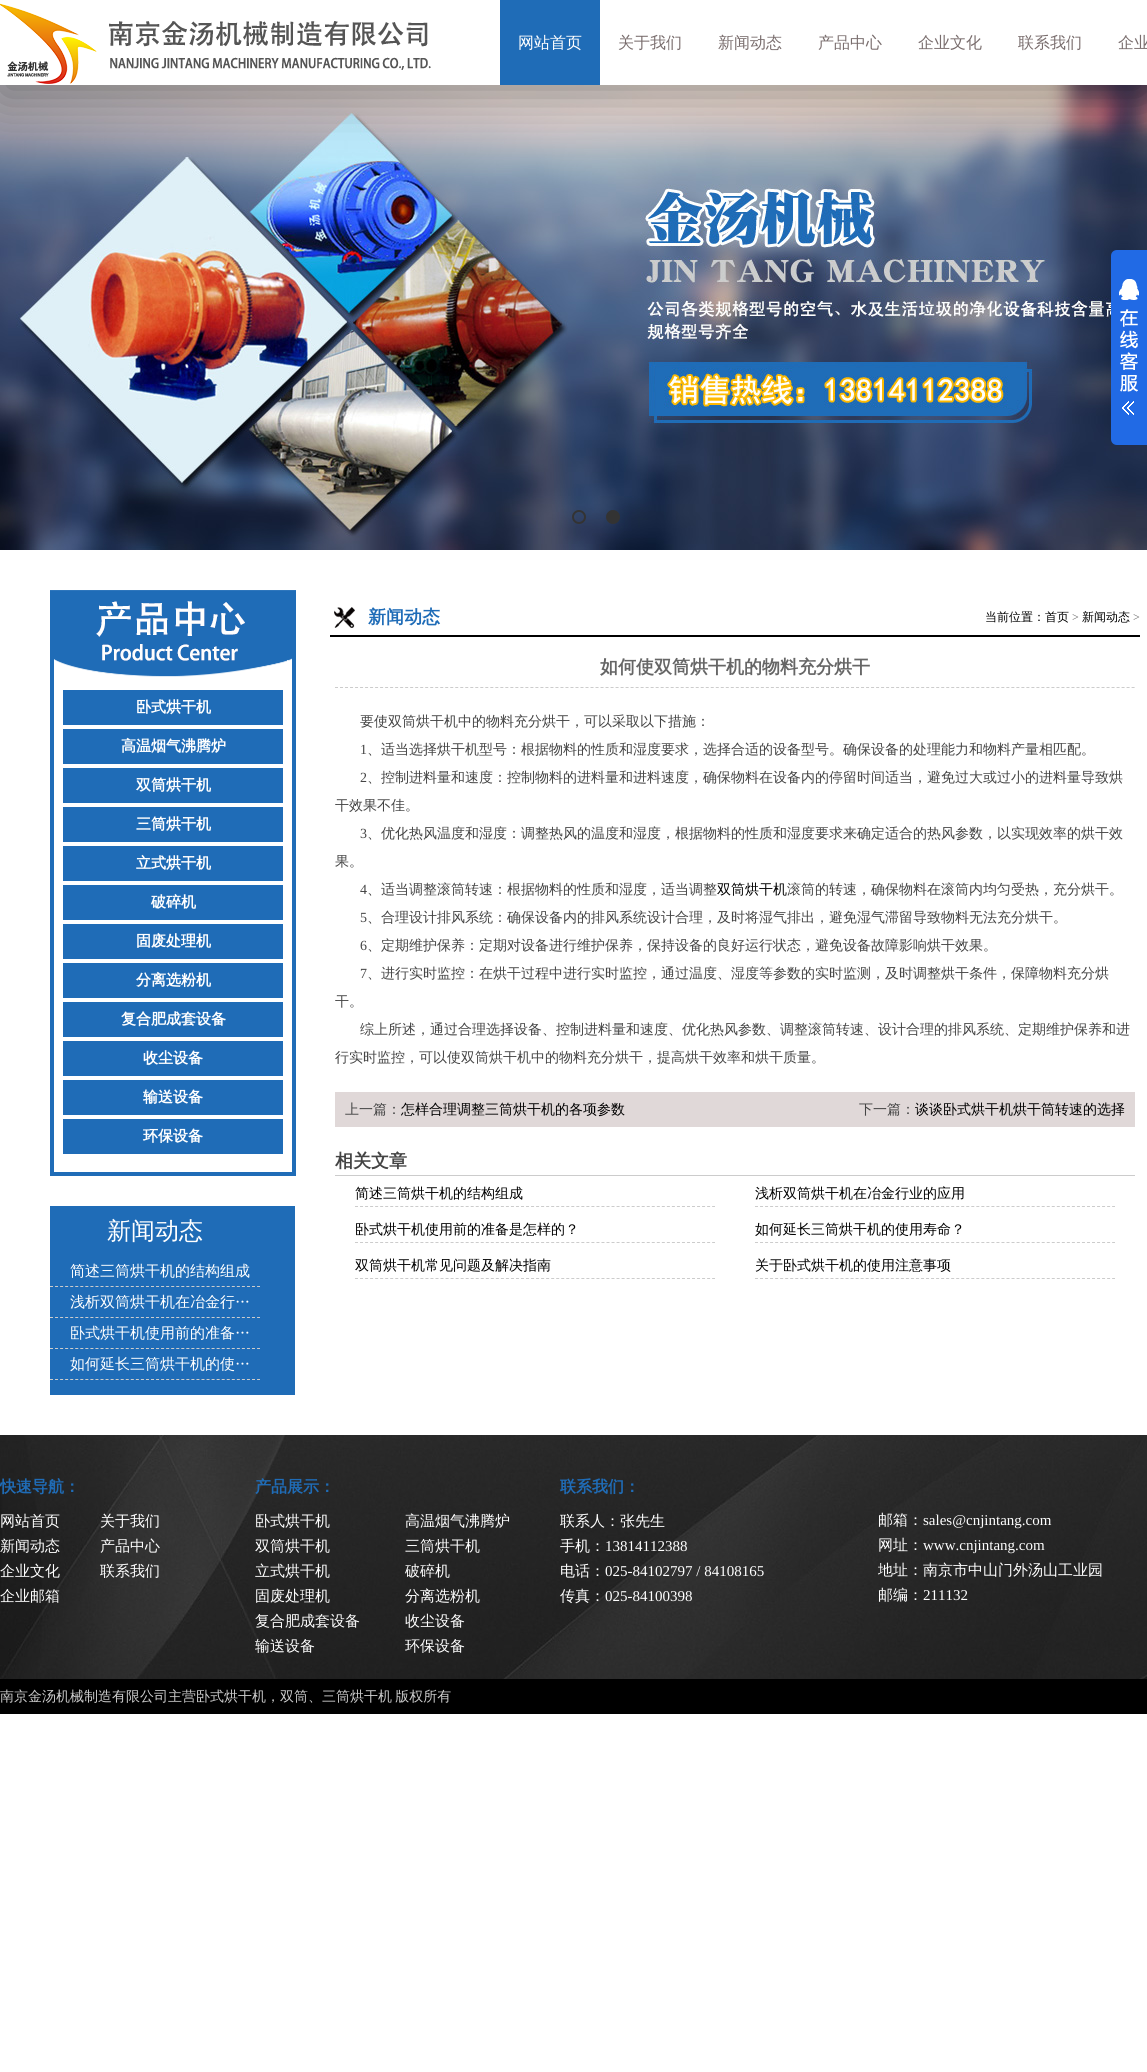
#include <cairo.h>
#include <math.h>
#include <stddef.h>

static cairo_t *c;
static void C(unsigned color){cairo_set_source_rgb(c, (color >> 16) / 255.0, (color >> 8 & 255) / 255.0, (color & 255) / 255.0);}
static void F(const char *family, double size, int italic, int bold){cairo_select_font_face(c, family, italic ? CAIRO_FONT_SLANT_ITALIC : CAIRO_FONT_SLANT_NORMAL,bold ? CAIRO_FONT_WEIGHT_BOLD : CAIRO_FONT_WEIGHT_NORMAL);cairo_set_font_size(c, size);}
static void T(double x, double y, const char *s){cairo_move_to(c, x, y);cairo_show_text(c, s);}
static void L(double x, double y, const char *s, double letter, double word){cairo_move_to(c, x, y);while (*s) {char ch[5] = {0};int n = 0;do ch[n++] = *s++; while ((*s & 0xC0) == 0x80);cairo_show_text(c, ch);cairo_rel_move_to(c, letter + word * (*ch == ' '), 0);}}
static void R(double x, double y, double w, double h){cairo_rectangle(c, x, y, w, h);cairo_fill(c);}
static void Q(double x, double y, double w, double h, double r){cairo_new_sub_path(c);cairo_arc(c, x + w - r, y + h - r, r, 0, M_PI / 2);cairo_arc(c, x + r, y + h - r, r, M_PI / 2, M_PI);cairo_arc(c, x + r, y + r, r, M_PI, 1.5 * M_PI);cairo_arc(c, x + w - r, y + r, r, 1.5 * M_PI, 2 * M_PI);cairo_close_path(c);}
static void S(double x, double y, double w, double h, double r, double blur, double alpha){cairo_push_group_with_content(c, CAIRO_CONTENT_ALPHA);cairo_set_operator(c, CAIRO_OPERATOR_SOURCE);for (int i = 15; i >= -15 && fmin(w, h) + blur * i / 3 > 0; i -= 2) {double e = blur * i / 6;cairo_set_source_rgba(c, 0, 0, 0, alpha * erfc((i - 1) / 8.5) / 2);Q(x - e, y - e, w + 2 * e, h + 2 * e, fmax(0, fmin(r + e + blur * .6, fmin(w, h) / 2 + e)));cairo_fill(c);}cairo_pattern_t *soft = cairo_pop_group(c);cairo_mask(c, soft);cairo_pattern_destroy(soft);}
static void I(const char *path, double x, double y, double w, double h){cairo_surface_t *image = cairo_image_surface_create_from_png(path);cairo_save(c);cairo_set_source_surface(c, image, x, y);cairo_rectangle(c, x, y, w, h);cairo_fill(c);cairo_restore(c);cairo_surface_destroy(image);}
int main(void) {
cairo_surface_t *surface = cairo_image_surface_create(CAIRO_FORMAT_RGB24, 1147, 2072);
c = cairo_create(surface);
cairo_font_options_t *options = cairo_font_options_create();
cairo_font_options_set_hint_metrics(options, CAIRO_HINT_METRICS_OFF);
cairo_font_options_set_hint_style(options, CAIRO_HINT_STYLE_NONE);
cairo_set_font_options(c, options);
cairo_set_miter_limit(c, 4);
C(0xffffff);
cairo_paint(c);
I("2.png",0,85,1147,465);
C(0x000000);
S(0,10,1147,85,0,25,.4);
C(0xffffff);
R(0,0,1147,85);
I("1.png",0,3,431,81);
C(0x1f6cb7);
R(500,0,100,85);
F("WenQuanYi Zen Hei Medium",16,0,0);
C(0xffffff);
T(518,48,"网站首页");
C(0x796d6d);
T(618,48,"关于我们");
T(718,48,"新闻动态");
T(818,48,"产品中心");
T(918,48,"企业文化");
T(1018,48,"联系我们");
T(1118,48,"企业");
cairo_new_path(c);
cairo_arc(c,579,517,6,0,2 * M_PI);
C(0x333333);
cairo_stroke(c);
cairo_arc(c,613,517,6,0,2 * M_PI);
cairo_fill_preserve(c);
cairo_stroke(c);
C(0x216ae5);
cairo_new_path(c);
cairo_move_to(c,1117,250);
cairo_line_to(c,1147,250);
cairo_line_to(c,1147,445);
cairo_line_to(c,1117,445);
cairo_curve_to(c,1113.5,445,1111,442.5,1111,439);
cairo_line_to(c,1111,256);
cairo_curve_to(c,1111,252.5,1113.5,250,1117,250);
cairo_close_path(c);
cairo_fill(c);
I("3.png",1119,279,20,136);
I("4.png",50,590,246,586);
C(0x1f6cb7);
R(63,690,220,35);
F("WenQuanYi Zen Hei",15,0,1);
C(0xffffff);
T(136,712,"卧式烘干机");
C(0x1f6cb7);
R(63,729,220,35);
C(0xffffff);
T(121,751,"高温烟气沸腾炉");
C(0x1f6cb7);
R(63,768,220,35);
C(0xffffff);
T(136,790,"双筒烘干机");
C(0x1f6cb7);
R(63,807,220,35);
C(0xffffff);
T(136,829,"三筒烘干机");
C(0x1f6cb7);
R(63,846,220,35);
C(0xffffff);
T(136,868,"立式烘干机");
C(0x1f6cb7);
R(63,885,220,35);
C(0xffffff);
T(151,907,"破碎机");
C(0x1f6cb7);
R(63,924,220,35);
C(0xffffff);
T(136,946,"固废处理机");
C(0x1f6cb7);
R(63,963,220,35);
C(0xffffff);
T(136,985,"分离选粉机");
C(0x1f6cb7);
R(63,1002,220,35);
C(0xffffff);
T(121,1024,"复合肥成套设备");
C(0x1f6cb7);
R(63,1041,220,35);
C(0xffffff);
T(143,1063,"收尘设备");
C(0x1f6cb7);
R(63,1080,220,35);
C(0xffffff);
T(143,1102,"输送设备");
C(0x1f6cb7);
R(63,1119,220,35);
C(0xffffff);
T(143,1141,"环保设备");
C(0x1f6cb7);
R(50,1206,245,189);
F("WenQuanYi Zen Hei Medium",24,0,0);
C(0xffffff);
T(107,1239,"新闻动态");
cairo_new_path(c);
cairo_move_to(c,50,1286.5);
cairo_line_to(c,260,1286.5);
C(0xcccccc);
cairo_set_line_width(c,1);
cairo_set_dash(c,(double[]){3,2.05},2,0);
cairo_stroke(c);
F("WenQuanYi Zen Hei Medium",15,0,0);
C(0xffffff);
T(70,1276,"简述三筒烘干机的结构组成");
cairo_new_path(c);
cairo_move_to(c,50,1317.5);
cairo_line_to(c,260,1317.5);
C(0xcccccc);
cairo_stroke(c);
C(0xffffff);
T(70,1307,"浅析双筒烘干机在冶金行…");
cairo_new_path(c);
cairo_move_to(c,50,1348.5);
cairo_line_to(c,260,1348.5);
C(0xcccccc);
cairo_stroke(c);
C(0xffffff);
T(70,1338,"卧式烘干机使用前的准备…");
cairo_new_path(c);
cairo_move_to(c,50,1379.5);
cairo_line_to(c,260,1379.5);
C(0xcccccc);
cairo_stroke(c);
C(0xffffff);
T(70,1369,"如何延长三筒烘干机的使…");
C(0x000000);
R(330,635,810,2);
I("5.png",334,607,21,21);
F("WenQuanYi Zen Hei",18,0,1);
C(0x1f6cb7);
T(368,623,"新闻动态");
F("WenQuanYi Zen Hei Medium",12,0,0);
C(0x000000);
T(985,621,"当前位置：首页");
F("Liberation Serif",12,0,0);
C(0x666666);
T(1072,621,">");
F("WenQuanYi Zen Hei Medium",12,0,0);
C(0x000000);
T(1082,621,"新闻动态");
F("Liberation Serif",12,0,0);
C(0x666666);
T(1133,621,">");
cairo_new_path(c);
cairo_move_to(c,335,687.5);
cairo_line_to(c,1135,687.5);
C(0xcccccc);
cairo_set_dash(c,(double[]){3,2.01},2,0);
cairo_stroke(c);
F("WenQuanYi Zen Hei",18,0,1);
C(0x666666);
T(600,673,"如何使双筒烘干机的物料充分烘干");
F("WenQuanYi Zen Hei Medium",14,0,0);
C(0x444444);
T(360,726,"要使双筒烘干机中的物料充分烘干，可以采取以下措施：");
F("Liberation Serif",14,0,0);
T(360,754,"1");
F("WenQuanYi Zen Hei Medium",14,0,0);
T(367,754,"、适当选择烘干机型号：根据物料的性质和湿度要求，选择合适的设备型号。确保设备的处理能力和物料产量相匹配。");
F("Liberation Serif",14,0,0);
T(360,782,"2");
F("WenQuanYi Zen Hei Medium",14,0,0);
T(367,782,"、控制进料量和速度：控制物料的进料量和进料速度，确保物料在设备内的停留时间适当，避免过大或过小的进料量导致烘");
T(335,810,"干效果不佳。");
F("Liberation Serif",14,0,0);
T(360,838,"3");
F("WenQuanYi Zen Hei Medium",14,0,0);
T(367,838,"、优化热风温度和湿度：调整热风的温度和湿度，根据物料的性质和湿度要求来确定适合的热风参数，以实现效率的烘干效");
T(335,866,"果。");
F("Liberation Serif",14,0,0);
T(360,894,"4");
F("WenQuanYi Zen Hei Medium",14,0,0);
T(367,894,"、适当调整滚筒转速：根据物料的性质和湿度，适当调整");
C(0x000000);
T(717,894,"双筒烘干机");
C(0x444444);
T(787,894,"滚筒的转速，确保物料在滚筒内均匀受热，充分烘干。");
F("Liberation Serif",14,0,0);
T(360,922,"5");
F("WenQuanYi Zen Hei Medium",14,0,0);
T(367,922,"、合理设计排风系统：确保设备内的排风系统设计合理，及时将湿气排出，避免湿气滞留导致物料无法充分烘干。");
F("Liberation Serif",14,0,0);
T(360,950,"6");
F("WenQuanYi Zen Hei Medium",14,0,0);
T(367,950,"、定期维护保养：定期对设备进行维护保养，保持设备的良好运行状态，避免设备故障影响烘干效果。");
F("Liberation Serif",14,0,0);
T(360,978,"7");
F("WenQuanYi Zen Hei Medium",14,0,0);
T(367,978,"、进行实时监控：在烘干过程中进行实时监控，通过温度、湿度等参数的实时监测，及时调整烘干条件，保障物料充分烘");
T(335,1006,"干。");
T(360,1034,"综上所述，通过合理选择设备、控制进料量和速度、优化热风参数、调整滚筒转速、设计合理的排风系统、定期维护保养和进");
T(335,1062,"行实时监控，可以使双筒烘干机中的物料充分烘干，提高烘干效率和烘干质量。");
C(0xe0d8d8);
R(335,1092,800,35);
C(0x444444);
T(345,1114,"上一篇：");
C(0x000000);
T(401,1114,"怎样合理调整三筒烘干机的各项参数");
C(0x444444);
T(859,1114,"下一篇：");
C(0x000000);
T(915,1114,"谈谈卧式烘干机烘干筒转速的选择");
C(0xcccccc);
R(335,1175,800,1);
F("WenQuanYi Zen Hei",18,0,1);
C(0x444444);
T(335,1167,"相关文章");
cairo_new_path(c);
cairo_move_to(c,355,1206.5);
cairo_line_to(c,715,1206.5);
C(0xcccccc);
cairo_set_dash(c,(double[]){3,2.03},2,0);
cairo_stroke(c);
F("WenQuanYi Zen Hei Medium",14,0,0);
C(0x000000);
T(355,1198,"简述三筒烘干机的结构组成");
cairo_new_path(c);
cairo_move_to(c,755,1206.5);
cairo_line_to(c,1115,1206.5);
C(0xcccccc);
cairo_stroke(c);
C(0x000000);
T(755,1198,"浅析双筒烘干机在冶金行业的应用");
cairo_new_path(c);
cairo_move_to(c,355,1242.5);
cairo_line_to(c,715,1242.5);
C(0xcccccc);
cairo_stroke(c);
C(0x000000);
T(355,1234,"卧式烘干机使用前的准备是怎样的？");
cairo_new_path(c);
cairo_move_to(c,755,1242.5);
cairo_line_to(c,1115,1242.5);
C(0xcccccc);
cairo_stroke(c);
C(0x000000);
T(755,1234,"如何延长三筒烘干机的使用寿命？");
cairo_new_path(c);
cairo_move_to(c,355,1278.5);
cairo_line_to(c,715,1278.5);
C(0xcccccc);
cairo_stroke(c);
C(0x000000);
T(355,1270,"双筒烘干机常见问题及解决指南");
cairo_new_path(c);
cairo_move_to(c,755,1278.5);
cairo_line_to(c,1115,1278.5);
C(0xcccccc);
cairo_stroke(c);
C(0x000000);
T(755,1270,"关于卧式烘干机的使用注意事项");
I("6.png",0,1435,1147,244);
F("WenQuanYi Zen Hei",16,0,1);
C(0x1f6cb7);
T(0,1492,"快速导航：");
F("WenQuanYi Zen Hei Medium",15,0,0);
C(0xffffff);
T(0,1526,"网站首页");
T(100,1526,"关于我们");
T(0,1551,"新闻动态");
T(100,1551,"产品中心");
T(0,1576,"企业文化");
T(100,1576,"联系我们");
T(0,1601,"企业邮箱");
F("WenQuanYi Zen Hei",16,0,1);
C(0x1f6cb7);
T(255,1492,"产品展示：");
F("WenQuanYi Zen Hei Medium",15,0,0);
C(0xffffff);
T(255,1526,"卧式烘干机");
T(405,1526,"高温烟气沸腾炉");
T(255,1551,"双筒烘干机");
T(405,1551,"三筒烘干机");
T(255,1576,"立式烘干机");
T(405,1576,"破碎机");
T(255,1601,"固废处理机");
T(405,1601,"分离选粉机");
T(255,1626,"复合肥成套设备");
T(405,1626,"收尘设备");
T(255,1651,"输送设备");
T(405,1651,"环保设备");
F("WenQuanYi Zen Hei",16,0,1);
C(0x1f6cb7);
T(560,1492,"联系我们：");
F("WenQuanYi Zen Hei Medium",15,0,0);
C(0xffffff);
T(560,1526,"联系人：张先生");
T(560,1551,"手机：");
F("Liberation Serif",15,0,0);
T(605,1551,"13814112388");
F("WenQuanYi Zen Hei Medium",15,0,0);
T(560,1576,"电话：");
F("Liberation Serif",15,0,0);
T(605,1576,"025-84102797 / 84108165");
F("WenQuanYi Zen Hei Medium",15,0,0);
T(560,1601,"传真：");
F("Liberation Serif",15,0,0);
T(605,1601,"025-84100398");
F("WenQuanYi Zen Hei Medium",15,0,0);
T(878,1525,"邮箱：");
F("Liberation Serif",15,0,0);
T(923,1525,"sales@cnjintang.com");
F("WenQuanYi Zen Hei Medium",15,0,0);
T(878,1550,"网址：");
F("Liberation Serif",15,0,0);
T(923,1550,"www.cnjintang.com");
F("WenQuanYi Zen Hei Medium",15,0,0);
T(878,1575,"地址：南京市中山门外汤山工业园");
T(878,1600,"邮编：");
F("Liberation Serif",15,0,0);
T(923,1600,"211132");
C(0x000000);
R(0,1679,1147,35);
F("WenQuanYi Zen Hei Medium",14,0,0);
C(0xcccccc);
L(0,1701,"南京金汤机械制造有限公司主营卧式烘干机，双筒、三筒烘干机 版权所有",0,-1);
cairo_surface_write_to_png(surface, "o.png");
cairo_font_options_destroy(options);
cairo_destroy(c);
cairo_surface_destroy(surface);
return 0;
}
